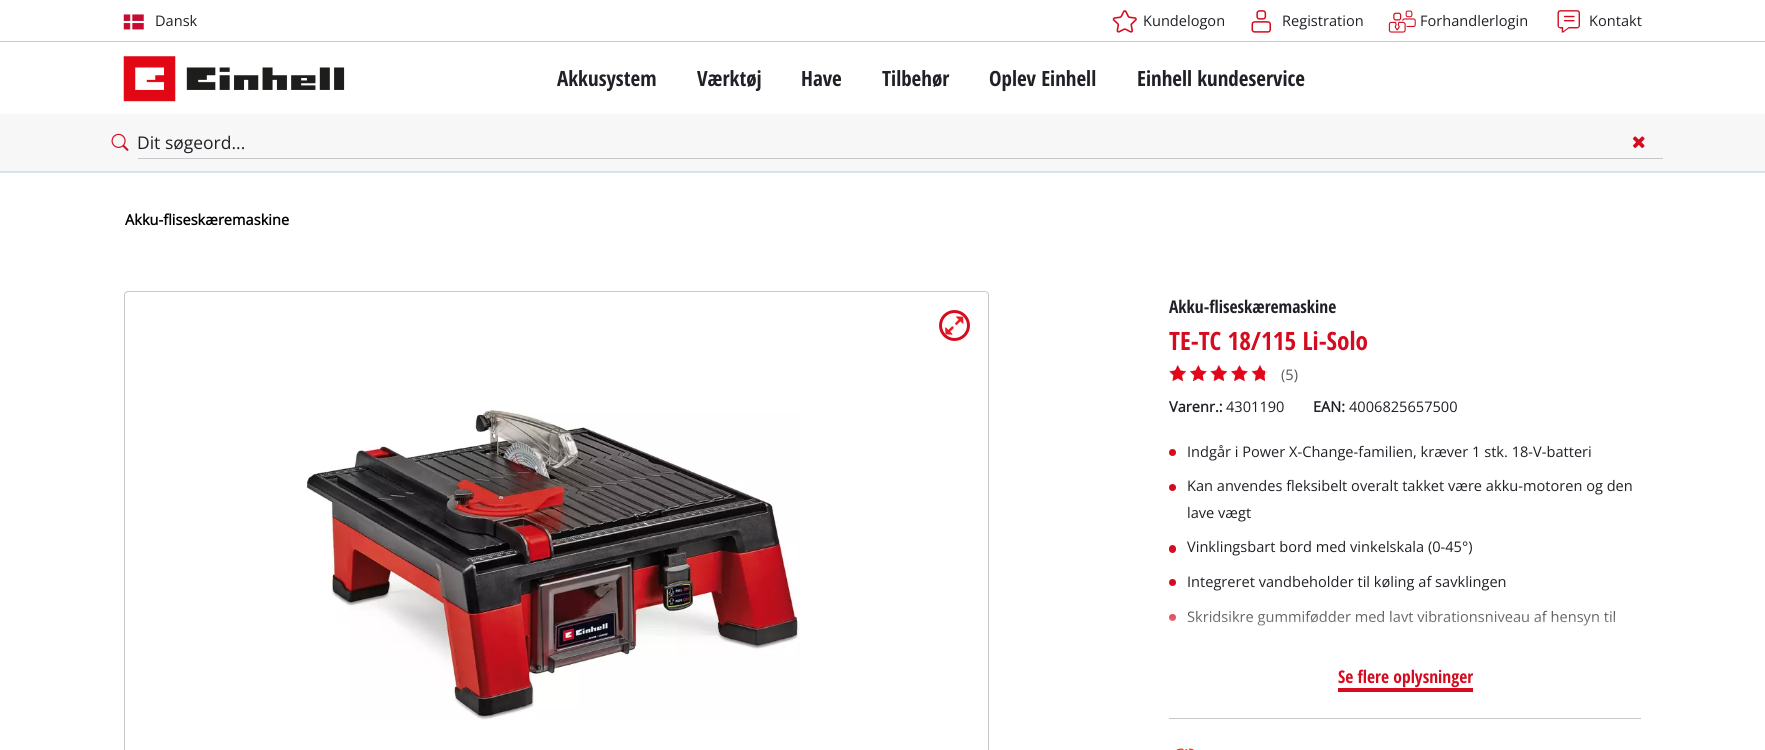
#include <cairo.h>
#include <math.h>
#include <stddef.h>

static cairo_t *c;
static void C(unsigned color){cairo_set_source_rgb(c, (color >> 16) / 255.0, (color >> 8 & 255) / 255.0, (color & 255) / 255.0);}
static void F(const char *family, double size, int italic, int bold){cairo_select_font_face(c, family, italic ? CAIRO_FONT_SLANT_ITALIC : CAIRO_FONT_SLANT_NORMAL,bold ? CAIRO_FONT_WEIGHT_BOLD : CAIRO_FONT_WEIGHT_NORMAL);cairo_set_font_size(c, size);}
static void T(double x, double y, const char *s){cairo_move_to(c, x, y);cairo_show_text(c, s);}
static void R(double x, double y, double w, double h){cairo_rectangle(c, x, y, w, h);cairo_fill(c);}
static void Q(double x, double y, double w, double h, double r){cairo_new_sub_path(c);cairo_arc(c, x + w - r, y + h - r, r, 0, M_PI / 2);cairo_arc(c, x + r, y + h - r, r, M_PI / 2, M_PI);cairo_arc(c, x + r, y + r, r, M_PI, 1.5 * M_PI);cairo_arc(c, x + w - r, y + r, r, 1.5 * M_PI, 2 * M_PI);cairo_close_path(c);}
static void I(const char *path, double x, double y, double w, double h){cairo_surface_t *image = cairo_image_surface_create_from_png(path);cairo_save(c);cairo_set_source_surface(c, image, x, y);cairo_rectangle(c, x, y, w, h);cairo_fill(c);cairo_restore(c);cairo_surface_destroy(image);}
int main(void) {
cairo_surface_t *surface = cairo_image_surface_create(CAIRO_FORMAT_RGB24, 1765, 750);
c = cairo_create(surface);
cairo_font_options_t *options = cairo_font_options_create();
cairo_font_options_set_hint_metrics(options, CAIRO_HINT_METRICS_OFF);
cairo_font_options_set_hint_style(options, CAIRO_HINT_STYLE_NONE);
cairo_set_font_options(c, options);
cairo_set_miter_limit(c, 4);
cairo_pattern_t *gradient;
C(0xffffff);
cairo_paint(c);
C(0xc7c7c9);
R(0,41,1765,1);
I("1.png",123,14,21,16);
F("Open Sans",14.6,0,0);
C(0x1f2126);
T(155,26,"Dansk");
I("2.png",1112,10,25,23);
T(1143,26,"Kundelogon");
I("3.png",1251,10,20,23);
T(1282,26,"Registration");
I("4.png",1388,10,28,23);
T(1420,26,"Forhandlerlogin");
I("5.png",1557,10,23,23);
T(1589,26,"Kontakt");
C(0xd9e1e8);
R(0,171,1765,2);
I("6.png",123,56,222,46);
F("Open Sans Condensed",21,0,1);
C(0x1f2126);
T(557,86,"Akkusystem");
T(697,86,"Værktøj");
T(801,86,"Have");
T(882,86,"Tilbehør");
T(989,86,"Oplev Einhell");
T(1137,86,"Einhell kundeservice");
C(0xf7f7f8);
R(0,114,1765,57);
I("7.png",111,133,18,18);
C(0xc7c7c9);
R(138,158,1525,1);
F("Open Sans",17.5,0,0);
C(0x1f2126);
T(137,149,"Dit søgeord...");
I("8.png",1633,136,12,12);
F("Open Sans",14.6,0,1);
C(0x000000);
T(125,225,"Akku-fliseskæremaskine");
Q(124.5,291.5,864,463,3.5);
C(0xc7c7c9);
cairo_set_line_width(c,1);
cairo_stroke(c);
cairo_arc(c,954.5,325.5,14,0,2 * M_PI);
C(0xd50c1f);
cairo_set_line_width(c,3);
cairo_stroke(c);
I("9.png",945,316,19,19);
I("10.png",306,410,494,310);
F("Open Sans Condensed",17.5,0,1);
C(0x1f2126);
T(1169,313,"Akku-fliseskæremaskine");
F("Open Sans Condensed",25.25,0,1);
C(0xd50c1f);
T(1169,350,"TE-TC 18/115 Li-Solo");
I("11.png",1169,365,99,16);
I("12.png",1169,365,96,17);
F("Open Sans",14.6,0,0);
C(0x555555);
T(1281,380,"(5)");
F("Open Sans",14.6,0,1);
C(0x1f2126);
T(1169,412,"Varenr.:");
F("Open Sans",14.6,0,0);
T(1226,412,"4301190");
F("Open Sans",14.6,0,1);
T(1313,412,"EAN:");
F("Open Sans",14.6,0,0);
T(1349,412,"4006825657500");
C(0xd50c1f);
cairo_new_path(c);
cairo_arc(c,1172.5,452.5,3.5,0,2 * M_PI);
cairo_fill(c);
C(0x1f2126);
T(1187,457,"Indgår i Power X-Change-familien, kræver 1 stk. 18-V-batteri");
C(0xd50c1f);
cairo_new_path(c);
cairo_arc(c,1172.5,487.5,3.5,0,2 * M_PI);
cairo_fill(c);
C(0x1f2126);
T(1187,491,"Kan anvendes fleksibelt overalt takket være akku-motoren og den");
T(1187,518,"lave vægt");
C(0xd50c1f);
Q(1169,545,7,8,3.5);
cairo_fill(c);
C(0x1f2126);
T(1187,552,"Vinklingsbart bord med vinkelskala (0-45°)");
C(0xd50c1f);
cairo_new_path(c);
cairo_arc(c,1172.5,582.5,3.5,0,2 * M_PI);
cairo_fill(c);
C(0x1f2126);
T(1187,587,"Integreret vandbeholder til køling af savklingen");
C(0xd50c1f);
cairo_new_path(c);
cairo_arc(c,1172.5,617.5,3.5,0,2 * M_PI);
cairo_fill(c);
C(0x1f2126);
T(1187,622,"Skridsikre gummifødder med lavt vibrationsniveau af hensyn til");
gradient = cairo_pattern_create_linear(1405,598,1405,660);
cairo_pattern_add_color_stop_rgba(gradient,0,1,1,1,0);
cairo_pattern_add_color_stop_rgba(gradient,1,1,1,1,1);
cairo_set_source(c,gradient);
cairo_pattern_destroy(gradient);
R(1169,610,446,16);
F("Open Sans Condensed",17.5,0,1);
C(0xd50c1f);
T(1338,683,"Se flere oplysninger");
R(1338,688,135,4);
C(0xc7c7c9);
R(1169,718,472,1);
I("13.png",1176,748,18,2);
cairo_surface_write_to_png(surface, "o.png");
cairo_font_options_destroy(options);
cairo_destroy(c);
cairo_surface_destroy(surface);
return 0;
}
